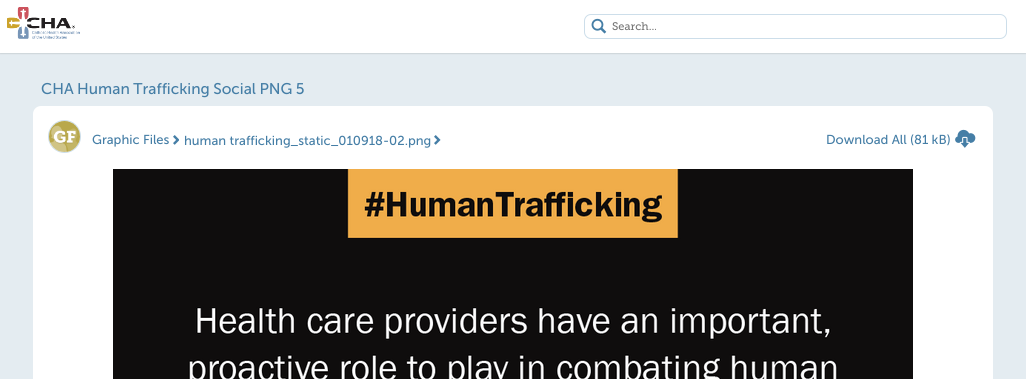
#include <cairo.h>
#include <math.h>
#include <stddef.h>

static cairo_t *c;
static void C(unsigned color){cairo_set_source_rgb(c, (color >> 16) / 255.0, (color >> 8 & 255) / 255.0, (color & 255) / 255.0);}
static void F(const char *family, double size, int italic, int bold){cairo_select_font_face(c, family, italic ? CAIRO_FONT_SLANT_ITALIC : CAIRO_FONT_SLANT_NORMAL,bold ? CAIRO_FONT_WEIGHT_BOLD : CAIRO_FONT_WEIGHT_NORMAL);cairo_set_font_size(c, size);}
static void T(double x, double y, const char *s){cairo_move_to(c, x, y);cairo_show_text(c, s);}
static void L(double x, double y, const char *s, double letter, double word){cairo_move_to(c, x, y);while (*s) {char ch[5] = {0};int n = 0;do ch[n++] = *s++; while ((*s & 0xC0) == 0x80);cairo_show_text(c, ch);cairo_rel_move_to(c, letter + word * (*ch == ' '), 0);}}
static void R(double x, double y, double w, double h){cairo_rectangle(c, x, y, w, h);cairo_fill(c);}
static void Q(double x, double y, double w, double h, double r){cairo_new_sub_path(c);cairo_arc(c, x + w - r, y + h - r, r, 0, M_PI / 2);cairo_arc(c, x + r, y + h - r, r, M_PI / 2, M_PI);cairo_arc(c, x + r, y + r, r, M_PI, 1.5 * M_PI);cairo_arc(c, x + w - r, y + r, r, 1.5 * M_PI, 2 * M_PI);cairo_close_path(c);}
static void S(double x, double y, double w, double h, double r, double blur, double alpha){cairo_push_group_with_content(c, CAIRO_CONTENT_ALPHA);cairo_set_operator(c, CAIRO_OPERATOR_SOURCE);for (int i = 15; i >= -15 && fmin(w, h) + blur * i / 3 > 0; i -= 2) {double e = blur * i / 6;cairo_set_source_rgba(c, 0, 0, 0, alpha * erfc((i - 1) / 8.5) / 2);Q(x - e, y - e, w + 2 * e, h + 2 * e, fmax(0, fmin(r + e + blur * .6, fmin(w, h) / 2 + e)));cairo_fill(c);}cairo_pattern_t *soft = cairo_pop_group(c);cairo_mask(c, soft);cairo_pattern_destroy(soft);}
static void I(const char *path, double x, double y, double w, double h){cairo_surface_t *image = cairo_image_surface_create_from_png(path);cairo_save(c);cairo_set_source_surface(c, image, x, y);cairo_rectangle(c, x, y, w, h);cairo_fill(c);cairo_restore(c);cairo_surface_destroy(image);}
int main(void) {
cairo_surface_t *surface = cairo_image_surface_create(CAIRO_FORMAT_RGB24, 1026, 379);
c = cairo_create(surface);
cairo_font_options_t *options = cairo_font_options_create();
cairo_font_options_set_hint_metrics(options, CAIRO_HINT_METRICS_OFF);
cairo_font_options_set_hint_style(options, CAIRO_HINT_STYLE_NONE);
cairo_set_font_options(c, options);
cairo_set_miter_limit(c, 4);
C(0xe4ecf1);
cairo_paint(c);
C(0x000000);
S(0,1,1026,53,0,.5,.1);
C(0xffffff);
R(0,0,1026,53);
I("1.png",7,7,73,32);
Q(584.5,14.5,422,24,6.5);
C(0xcddeea);
cairo_set_line_width(c,1);
cairo_stroke(c);
I("2.png",591,18,16,16);
F("Museo Slab",11,0,0);
C(0x757575);
T(612,30,"Search...");
F("Museo Sans",15.5,0,0);
C(0x457ea6);
L(41,94,"CHA Human Trafficking Social PNG 5",0,-.5);
C(0xffffff);
Q(33,106,960,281,8);
cairo_fill(c);
cairo_arc(c,64.5,136.5,16,0,2 * M_PI);
C(0xcddeea);
cairo_stroke(c);
I("3.png",49,121,31,31);
F("Museo Sans",13,0,0);
C(0x457ea6);
T(92,144,"Graphic Files");
I("4.png",173,135,6,10);
T(184,145,"human trafficking_static_010918-02.png");
I("5.png",434,135,7,10);
T(826,144,"Download All (81 kB)");
I("6.png",955,129,21,19);
I("7.png",113,169,800,210);
cairo_surface_write_to_png(surface, "o.png");
cairo_font_options_destroy(options);
cairo_destroy(c);
cairo_surface_destroy(surface);
return 0;
}
